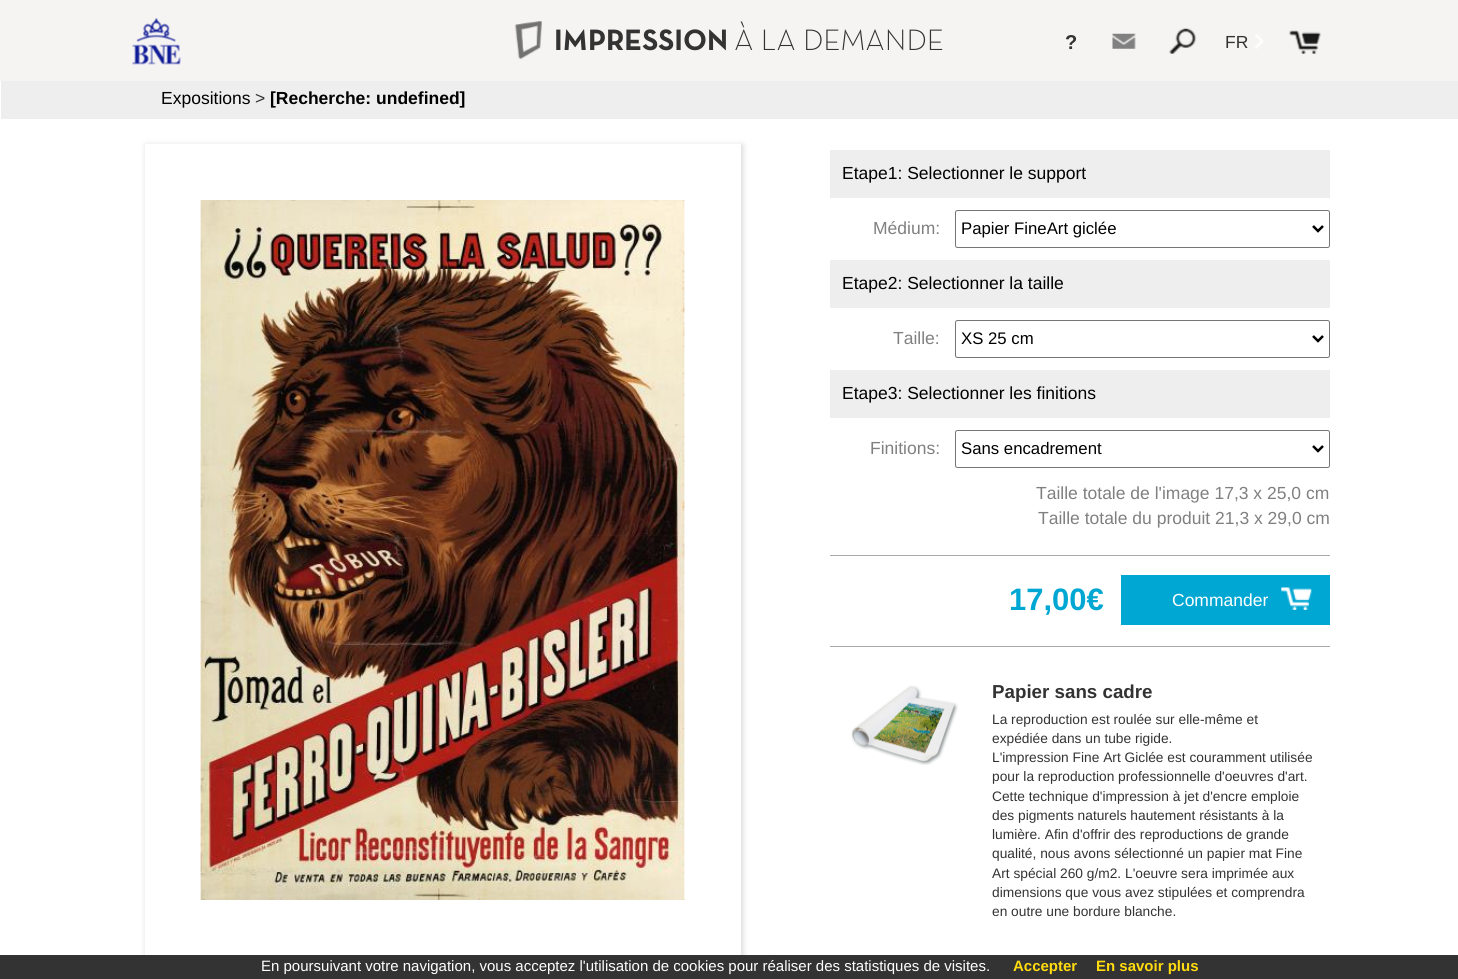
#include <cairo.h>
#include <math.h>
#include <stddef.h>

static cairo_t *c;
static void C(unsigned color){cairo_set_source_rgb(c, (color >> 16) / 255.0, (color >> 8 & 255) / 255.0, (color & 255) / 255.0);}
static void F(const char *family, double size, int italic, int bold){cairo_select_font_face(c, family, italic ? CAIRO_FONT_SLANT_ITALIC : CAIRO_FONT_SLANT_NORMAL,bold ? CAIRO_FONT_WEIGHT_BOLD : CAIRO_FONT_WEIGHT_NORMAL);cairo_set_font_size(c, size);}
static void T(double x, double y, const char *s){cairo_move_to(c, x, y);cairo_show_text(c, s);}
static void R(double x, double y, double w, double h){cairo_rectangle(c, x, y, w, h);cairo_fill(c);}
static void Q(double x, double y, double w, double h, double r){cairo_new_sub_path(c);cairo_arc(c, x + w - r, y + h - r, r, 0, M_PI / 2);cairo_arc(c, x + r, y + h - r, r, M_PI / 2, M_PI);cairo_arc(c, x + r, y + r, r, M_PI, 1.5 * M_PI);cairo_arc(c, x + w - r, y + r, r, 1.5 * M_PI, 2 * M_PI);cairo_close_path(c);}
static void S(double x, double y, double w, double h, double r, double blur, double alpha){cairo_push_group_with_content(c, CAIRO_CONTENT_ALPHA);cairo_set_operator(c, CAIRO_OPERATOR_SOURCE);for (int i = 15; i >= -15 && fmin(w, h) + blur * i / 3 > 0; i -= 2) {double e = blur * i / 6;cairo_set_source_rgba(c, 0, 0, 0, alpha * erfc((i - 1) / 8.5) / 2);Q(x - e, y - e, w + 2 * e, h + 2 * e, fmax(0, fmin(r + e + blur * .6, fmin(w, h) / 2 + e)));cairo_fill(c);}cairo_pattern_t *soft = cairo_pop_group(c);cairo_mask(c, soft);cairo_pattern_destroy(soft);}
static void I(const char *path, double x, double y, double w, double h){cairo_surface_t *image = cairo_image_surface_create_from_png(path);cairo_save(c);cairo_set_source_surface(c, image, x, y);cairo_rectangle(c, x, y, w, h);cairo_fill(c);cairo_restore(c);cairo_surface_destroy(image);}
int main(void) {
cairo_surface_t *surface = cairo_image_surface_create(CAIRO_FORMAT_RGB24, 1458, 979);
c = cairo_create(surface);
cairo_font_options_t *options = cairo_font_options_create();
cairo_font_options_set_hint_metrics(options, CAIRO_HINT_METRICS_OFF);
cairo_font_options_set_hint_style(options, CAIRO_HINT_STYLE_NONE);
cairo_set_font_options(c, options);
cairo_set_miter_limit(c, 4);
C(0xffffff);
cairo_paint(c);
C(0xf6f4f3);
R(0,0,1458,81);
I("1.png",132,18,49,47);
I("2.png",514,21,28,39);
F("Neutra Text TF",30,0,1);
C(0x333333);
T(554,50,"IMPRESSION");
F("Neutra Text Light",30,0,0);
T(734,50,"À LA DEMANDE");
F("Liberation Sans",20,0,1);
T(1065,49,"?");
I("3.png",1112,33,24,16);
I("4.png",1169,28,27,26);
F("Liberation Sans",17.5,0,0);
T(1225,48,"FR");
I("5.png",1255,34,9,15);
I("6.png",1289,30,32,24);
C(0xeeeeee);
R(1,81,1457,38);
C(0x000000);
T(161,104,"Expositions");
C(0x333333);
T(255,104,">");
F("Liberation Sans",17.5,0,1);
C(0x000000);
T(270,104,"[Recherche: undefined]");
C(0x3c3c3c);
S(146,145,597,813,0,3,.2);
C(0xffffff);
R(145,144,596,811);
I("7.png",200,200,485,700);
C(0xeeeeee);
R(830,150,500,48);
F("Liberation Sans",17.5,0,0);
C(0x000000);
T(842,179,"Etape1: Selectionner le support");
C(0x808080);
T(873,234,"Médium:");
Q(955.5,210.5,374,37,2);
C(0x767676);
cairo_set_line_width(c,1);
cairo_stroke(c);
cairo_new_path(c);
cairo_move_to(c,1313,226);
cairo_line_to(c,1318,231);
cairo_line_to(c,1323,226);
C(0x000000);
cairo_set_line_width(c,2.5);
cairo_stroke(c);
F("Liberation Sans",16.75,0,0);
T(961,234,"Papier FineArt giclée");
C(0xeeeeee);
R(830,260,500,48);
F("Liberation Sans",17.5,0,0);
C(0x000000);
T(842,289,"Etape2: Selectionner la taille");
C(0x808080);
T(893,344,"Taille:");
Q(955.5,320.5,374,37,2);
C(0x767676);
cairo_set_line_width(c,1);
cairo_stroke(c);
cairo_new_path(c);
cairo_move_to(c,1313,336);
cairo_line_to(c,1318,341);
cairo_line_to(c,1323,336);
C(0x000000);
cairo_set_line_width(c,2.5);
cairo_stroke(c);
F("Liberation Sans",16.75,0,0);
T(961,344,"XS 25 cm");
C(0xeeeeee);
R(830,370,500,48);
F("Liberation Sans",17.5,0,0);
C(0x000000);
T(842,399,"Etape3: Selectionner les finitions");
C(0x808080);
T(870,454,"Finitions:");
Q(955.5,430.5,374,37,2);
C(0x767676);
cairo_set_line_width(c,1);
cairo_stroke(c);
cairo_new_path(c);
cairo_move_to(c,1313,446);
cairo_line_to(c,1318,451);
cairo_line_to(c,1323,446);
C(0x000000);
cairo_set_line_width(c,2.5);
cairo_stroke(c);
F("Liberation Sans",16.75,0,0);
T(961,454,"Sans encadrement");
F("Liberation Sans",17.5,0,0);
C(0x808080);
T(1036,499,"Taille totale de l'image 17,3 x 25,0 cm");
T(1038,524,"Taille totale du produit 21,3 x 29,0 cm");
C(0xaaaaaa);
R(830,555,500,1);
F("Liberation Sans",31,0,1);
C(0x00a7d3);
T(1009,610,"17,00€");
R(1121,575,209,50);
F("Liberation Sans",17.5,0,0);
C(0xffffff);
T(1172,606,"Commander");
I("8.png",1281,587,31,23);
C(0xaaaaaa);
R(830,646,500,1);
I("9.png",851,685,107,80);
F("Liberation Sans",18.75,0,1);
C(0x333333);
T(992,698,"Papier sans cadre");
F("Liberation Sans",13.75,0,0);
T(992,724,"La reproduction est roulée sur elle-même et");
T(992,743,"expédiée dans un tube rigide.");
T(992,762,"L'impression Fine Art Giclée est couramment utilisée");
T(992,781,"pour la reproduction professionnelle d'oeuvres d'art.");
T(992,801,"Cette technique d'impression à jet d'encre emploie");
T(992,820,"des pigments naturels hautement résistants à la");
T(992,839,"lumière. Afin d'offrir des reproductions de grande");
T(992,858,"qualité, nous avons sélectionné un papier mat Fine");
T(992,878,"Art spécial 260 g/m2. L'oeuvre sera imprimée aux");
T(992,897,"dimensions que vous avez stipulées et comprendra");
T(992,916,"en outre une bordure blanche.");
R(0,955,1458,24);
F("Liberation Sans",15,0,0);
C(0xffffff);
T(261,971,"En poursuivant votre navigation, vous acceptez l'utilisation de cookies pour réaliser des statistiques de visites.");
F("Liberation Sans",15,0,1);
C(0xffdb0f);
T(1013,971,"Accepter");
T(1096,971,"En savoir plus");
cairo_surface_write_to_png(surface, "o.png");
cairo_font_options_destroy(options);
cairo_destroy(c);
cairo_surface_destroy(surface);
return 0;
}
